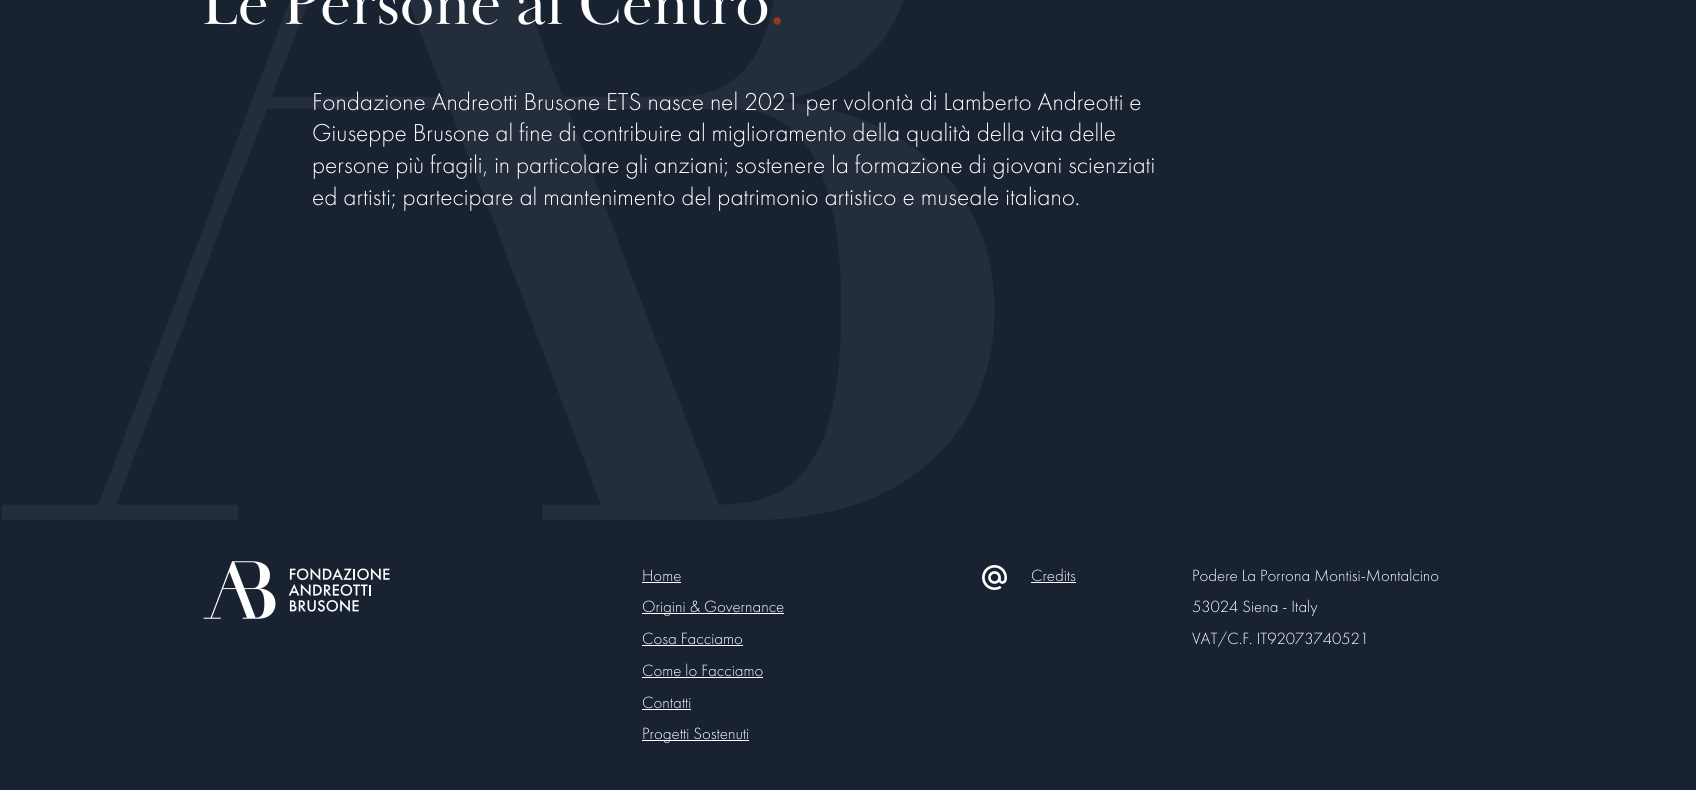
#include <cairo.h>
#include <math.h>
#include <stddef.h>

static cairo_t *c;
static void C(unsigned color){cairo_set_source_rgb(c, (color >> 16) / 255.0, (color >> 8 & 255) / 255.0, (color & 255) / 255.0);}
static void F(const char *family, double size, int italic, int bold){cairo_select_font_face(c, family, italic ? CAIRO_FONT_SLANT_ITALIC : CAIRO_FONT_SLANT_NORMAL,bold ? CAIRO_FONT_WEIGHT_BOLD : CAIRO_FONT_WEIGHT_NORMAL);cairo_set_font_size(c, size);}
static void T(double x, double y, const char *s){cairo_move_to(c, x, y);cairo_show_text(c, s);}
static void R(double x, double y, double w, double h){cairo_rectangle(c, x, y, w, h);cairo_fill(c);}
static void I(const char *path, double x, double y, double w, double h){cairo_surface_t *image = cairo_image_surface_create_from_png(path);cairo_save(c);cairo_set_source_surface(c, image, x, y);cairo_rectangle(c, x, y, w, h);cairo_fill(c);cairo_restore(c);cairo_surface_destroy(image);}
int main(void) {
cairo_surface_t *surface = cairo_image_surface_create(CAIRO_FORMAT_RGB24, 1696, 795);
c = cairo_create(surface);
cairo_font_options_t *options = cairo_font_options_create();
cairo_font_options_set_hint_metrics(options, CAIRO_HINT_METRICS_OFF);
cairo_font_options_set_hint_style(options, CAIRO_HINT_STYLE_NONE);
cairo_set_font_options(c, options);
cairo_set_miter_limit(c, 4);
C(0x182231);
cairo_paint(c);
F("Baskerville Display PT",63.5,0,0);
C(0xffffff);
T(202,24,"Le Persone al Centro");
C(0x922d19);
T(769,24,".");
F("Futura PT Light",25.4,0,0);
C(0xffffff);
T(312,110,"Fondazione Andreotti Brusone ETS nasce nel 2021 per volontà di Lamberto Andreotti e");
T(312,141,"Giuseppe Brusone al fine di contribuire al miglioramento della qualità della vita delle");
T(312,173,"persone più fragili, in particolare gli anziani; sostenere la formazione di giovani scienziati");
T(312,205,"ed artisti; partecipare al mantenimento del patrimonio artistico e museale italiano.");
I("1.png",2,0,993,520);
R(0,790,1696,5);
I("2.png",203,561,187,58);
F("Futura PT Light",16.9,0,0);
T(642,581,"Home");
R(642,582,39,1);
R(642,613,142,1);
T(642,612,"Origini & Governance");
T(642,644,"Cosa Facciamo");
R(642,645,101,1);
T(642,676,"Come lo Facciamo");
R(642,677,121,1);
T(642,708,"Contatti");
R(642,709,49,1);
R(642,740,107,1);
T(642,739,"Progetti Sostenuti");
I("3.png",982,565,25,25);
T(1031,581,"Credits");
R(1031,582,45,1);
T(1192,581,"Podere La Porrona Montisi-Montalcino");
T(1192,612,"53024 Siena - Italy");
T(1192,644,"VAT/C.F. IT92073740521");
cairo_surface_write_to_png(surface, "o.png");
cairo_font_options_destroy(options);
cairo_destroy(c);
cairo_surface_destroy(surface);
return 0;
}
